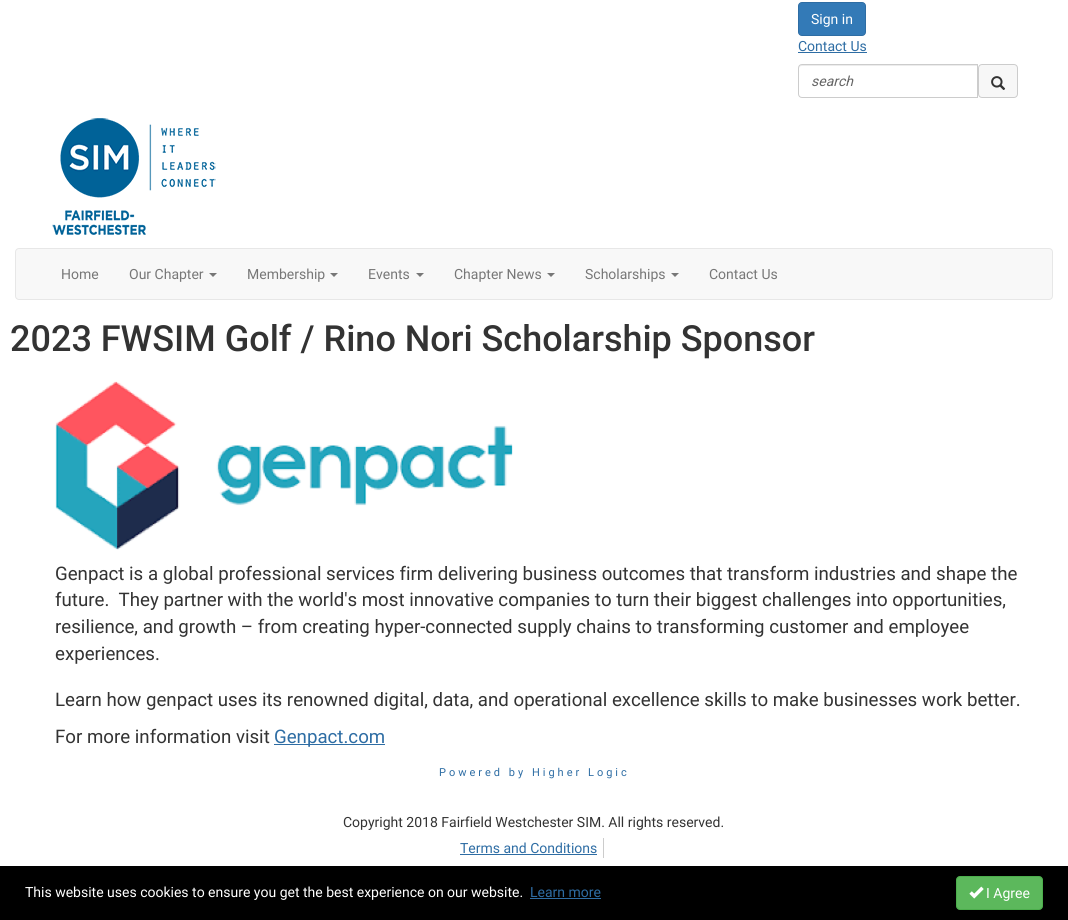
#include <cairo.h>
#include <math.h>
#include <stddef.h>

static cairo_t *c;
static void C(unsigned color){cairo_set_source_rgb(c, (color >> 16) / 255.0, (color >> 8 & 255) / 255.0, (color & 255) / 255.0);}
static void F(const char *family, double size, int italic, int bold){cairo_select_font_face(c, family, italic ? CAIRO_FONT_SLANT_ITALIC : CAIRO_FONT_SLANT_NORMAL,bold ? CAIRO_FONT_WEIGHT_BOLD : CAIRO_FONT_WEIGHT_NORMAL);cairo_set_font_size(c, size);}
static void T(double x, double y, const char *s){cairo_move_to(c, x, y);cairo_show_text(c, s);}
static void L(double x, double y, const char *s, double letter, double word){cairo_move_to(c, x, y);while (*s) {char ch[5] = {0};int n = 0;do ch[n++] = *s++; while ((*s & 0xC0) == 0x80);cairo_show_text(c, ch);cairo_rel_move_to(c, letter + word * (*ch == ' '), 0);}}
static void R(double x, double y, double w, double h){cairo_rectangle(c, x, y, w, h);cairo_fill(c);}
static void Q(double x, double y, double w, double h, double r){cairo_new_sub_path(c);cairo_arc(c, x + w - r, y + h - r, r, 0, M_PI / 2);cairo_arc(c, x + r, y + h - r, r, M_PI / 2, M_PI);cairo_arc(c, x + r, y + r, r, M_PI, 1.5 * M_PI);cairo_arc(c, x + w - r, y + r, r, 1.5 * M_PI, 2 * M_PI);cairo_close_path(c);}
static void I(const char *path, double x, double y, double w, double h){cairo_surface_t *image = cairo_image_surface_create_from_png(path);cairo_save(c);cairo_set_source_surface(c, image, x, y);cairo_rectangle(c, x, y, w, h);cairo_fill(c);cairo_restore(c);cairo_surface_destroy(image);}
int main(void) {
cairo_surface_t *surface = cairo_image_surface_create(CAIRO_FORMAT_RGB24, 1068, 920);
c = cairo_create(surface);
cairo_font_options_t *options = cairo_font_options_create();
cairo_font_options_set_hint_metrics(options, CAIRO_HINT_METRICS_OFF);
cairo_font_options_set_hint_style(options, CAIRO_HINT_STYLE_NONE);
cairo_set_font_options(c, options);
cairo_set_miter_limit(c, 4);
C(0xffffff);
cairo_paint(c);
C(0x337ab7);
Q(798.5,2.5,67,33,3.5);
cairo_fill_preserve(c);
C(0x2e6da4);
cairo_set_line_width(c,1);
cairo_stroke(c);
F("Roboto",14,0,0);
C(0xffffff);
T(811,24,"Sign in");
C(0x2e6da4);
T(798,51,"Contact Us");
R(798,52,69,1);
C(0xececec);
cairo_new_path(c);
cairo_move_to(c,802,66);
cairo_line_to(c,977,66);
cairo_line_to(c,977,65);
cairo_line_to(c,801,65);
cairo_curve_to(c,799,66,799,67,799,69);
cairo_curve_to(c,799,67,800,66,802,66);
cairo_close_path(c);
cairo_fill(c);
cairo_new_path(c);
cairo_move_to(c,802,64.5);
cairo_line_to(c,977.5,64.5);
cairo_line_to(c,977.5,97.5);
cairo_line_to(c,802,97.5);
cairo_curve_to(c,800,97.5,798.5,96,798.5,94);
cairo_line_to(c,798.5,68);
cairo_curve_to(c,798.5,66,800,64.5,802,64.5);
cairo_close_path(c);
C(0xcccccc);
cairo_stroke(c);
F("Roboto",14,1,0);
C(0x666666);
T(811,86,"search");
C(0xf7f7f7);
Q(978.5,64.5,39,33,3.5);
cairo_fill_preserve(c);
C(0xcccccc);
cairo_stroke(c);
I("1.png",991,76,15,14);
I("2.png",52,118,164,117);
C(0xf8f8f8);
Q(15.5,248.5,1037,51,3.5);
cairo_fill_preserve(c);
C(0xe7e7e7);
cairo_stroke(c);
F("Roboto",14,0,0);
C(0x777777);
T(61,279,"Home");
T(129,279,"Our Chapter");
cairo_new_path(c);
cairo_move_to(c,209,273);
cairo_line_to(c,217,273);
cairo_line_to(c,213,277);
cairo_close_path(c);
cairo_fill(c);
T(247,279,"Membership");
cairo_new_path(c);
cairo_move_to(c,330,273);
cairo_line_to(c,338,273);
cairo_line_to(c,334,277);
cairo_close_path(c);
cairo_fill(c);
T(368,279,"Events");
cairo_new_path(c);
cairo_move_to(c,416,273);
cairo_line_to(c,424,273);
cairo_line_to(c,420,277);
cairo_close_path(c);
cairo_fill(c);
T(454,279,"Chapter News");
cairo_new_path(c);
cairo_move_to(c,547,273);
cairo_line_to(c,555,273);
cairo_line_to(c,551,277);
cairo_close_path(c);
cairo_fill(c);
T(585,279,"Scholarships");
cairo_new_path(c);
cairo_move_to(c,671,273);
cairo_line_to(c,679,273);
cairo_line_to(c,675,277);
cairo_close_path(c);
cairo_fill(c);
T(709,279,"Contact Us");
F("Roboto Medium",36,0,0);
C(0x333333);
T(10,351,"2023 FWSIM Golf / Rino Nori Scholarship Sponsor");
I("3.png",55,381,458,169);
F("Roboto",18.67,0,0);
T(55,580,"Genpact is a global professional services firm delivering business outcomes that transform industries and shape the");
T(55,606,"future.  They partner with the world's most innovative companies to turn their biggest challenges into opportunities,");
T(55,633,"resilience, and growth – from creating hyper-connected supply chains to transforming customer and employee");
T(55,660,"experiences.");
T(55,706,"Learn how genpact uses its renowned digital, data, and operational excellence skills to make businesses work better.");
T(55,743,"For more information visit");
C(0x2e6da4);
R(274,744,111,1);
T(274,743,"Genpact.com");
F("Roboto",11,0,0);
L(439,776,"Powered by Higher Logic",3,0);
C(0x000000);
R(0,866,1068,54);
F("Roboto",14,0,0);
C(0xffffff);
T(25,897,"This website uses cookies to ensure you get the best experience on our website.");
C(0x2e6da4);
T(530,897,"Learn more");
R(530,898,71,1);
C(0x5cb85c);
Q(956.5,876.5,86,33,3.5);
cairo_fill_preserve(c);
C(0x4cae4c);
cairo_stroke(c);
I("4.png",969,886,15,13);
C(0xffffff);
T(986,898,"I Agree");
C(0x333333);
T(343,827,"Copyright 2018 Fairfield Westchester SIM. All rights reserved.");
C(0xcccccc);
R(603,838,1,20);
C(0x2e6da4);
T(460,853,"Terms and Conditions");
R(460,854,137,1);
cairo_surface_write_to_png(surface, "o.png");
cairo_font_options_destroy(options);
cairo_destroy(c);
cairo_surface_destroy(surface);
return 0;
}
